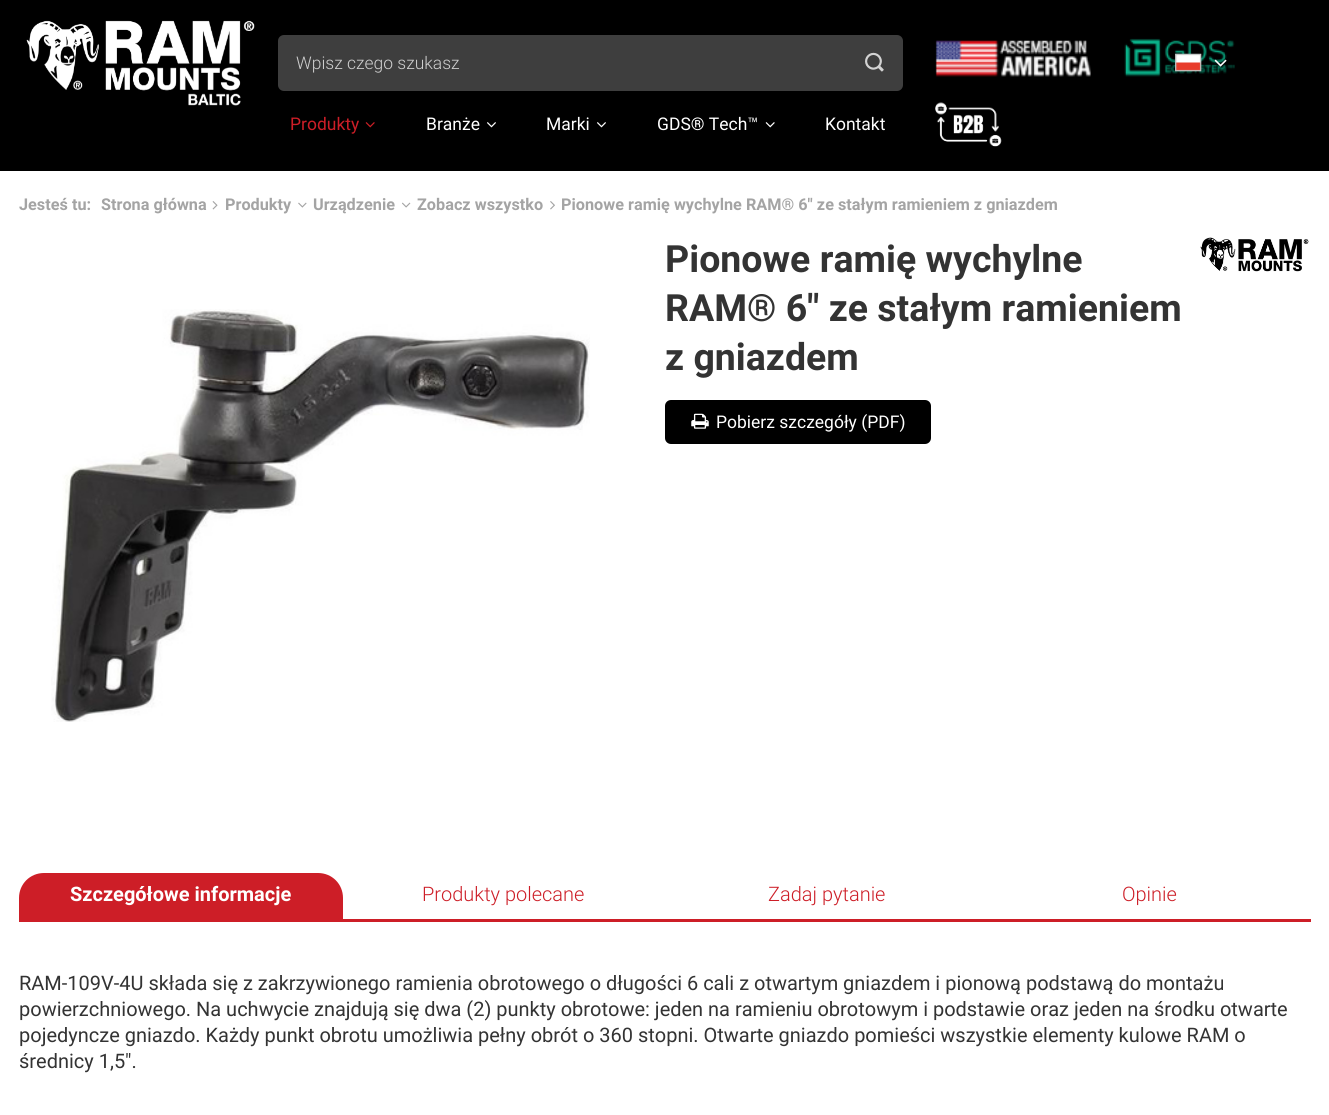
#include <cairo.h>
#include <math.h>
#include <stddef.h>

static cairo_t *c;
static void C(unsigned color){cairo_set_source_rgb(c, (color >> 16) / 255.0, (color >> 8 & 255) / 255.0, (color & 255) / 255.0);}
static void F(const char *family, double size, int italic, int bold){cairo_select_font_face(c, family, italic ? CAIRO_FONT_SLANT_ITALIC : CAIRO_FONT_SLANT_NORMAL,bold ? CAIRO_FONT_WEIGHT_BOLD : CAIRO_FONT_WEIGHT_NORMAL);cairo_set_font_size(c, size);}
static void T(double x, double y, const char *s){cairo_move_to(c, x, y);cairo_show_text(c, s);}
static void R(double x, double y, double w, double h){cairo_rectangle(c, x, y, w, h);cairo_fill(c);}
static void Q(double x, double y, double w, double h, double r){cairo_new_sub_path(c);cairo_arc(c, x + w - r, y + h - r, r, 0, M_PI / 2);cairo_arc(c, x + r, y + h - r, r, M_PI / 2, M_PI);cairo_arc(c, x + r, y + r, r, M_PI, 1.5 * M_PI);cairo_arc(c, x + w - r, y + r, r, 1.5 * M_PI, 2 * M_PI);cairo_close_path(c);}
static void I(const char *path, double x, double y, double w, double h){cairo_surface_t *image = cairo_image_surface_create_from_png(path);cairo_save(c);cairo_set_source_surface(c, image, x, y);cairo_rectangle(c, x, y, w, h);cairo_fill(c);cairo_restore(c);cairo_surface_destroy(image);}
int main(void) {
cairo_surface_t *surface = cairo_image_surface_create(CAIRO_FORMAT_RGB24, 1329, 1115);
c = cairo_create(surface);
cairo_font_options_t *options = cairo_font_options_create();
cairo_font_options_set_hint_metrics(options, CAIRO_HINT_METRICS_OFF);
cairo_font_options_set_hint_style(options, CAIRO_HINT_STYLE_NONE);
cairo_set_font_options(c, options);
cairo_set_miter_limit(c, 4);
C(0xffffff);
cairo_paint(c);
C(0x000000);
R(0,0,1329,171);
I("1.png",26,20,229,86);
C(0x3e3e3e);
Q(278,35,625,56,6);
cairo_fill(c);
F("Roboto Light",17.5,0,0);
C(0xcfcfcf);
T(296,69,"Wpisz czego szukasz");
I("2.png",865,52,19,20);
I("3.png",935,38,300,39);
I("4.png",1175,53,27,19);
I("5.png",1214,59,13,8);
F("Roboto",17.5,0,0);
C(0xcd1e27);
T(290,130,"Produkty");
I("6.png",365,122,10,6);
C(0xffffff);
T(426,130,"Branże");
I("7.png",487,122,9,6);
T(546,130,"Marki");
I("7.png",597,122,9,6);
T(657,130,"GDS® Tech™");
I("8.png",765,122,10,6);
T(825,130,"Kontakt");
I("9.png",935,102,67,45);
F("Roboto",16.25,0,1);
C(0xa4a4a4);
T(19,210,"Jesteś tu:");
T(101,210,"Strona główna");
I("10.png",212,201,6,9);
T(225,210,"Produkty");
I("11.png",298,202,9,6);
T(313,210,"Urządzenie");
I("12.png",402,202,9,6);
T(417,210,"Zobacz wszystko");
I("13.png",550,201,5,9);
T(561,210,"Pionowe ramię wychylne RAM® 6\" ze stałym ramieniem z gniazdem");
I("14.png",51,309,539,413);
F("Roboto",37.5,0,1);
C(0x333333);
T(665,272,"Pionowe ramię wychylne");
T(665,321,"RAM® 6\" ze stałym ramieniem");
T(665,370,"z gniazdem");
I("15.png",1200,237,109,35);
C(0x000000);
Q(665,400,266,44,6);
cairo_fill(c);
I("16.png",691,413,18,16);
F("Roboto",17.5,0,0);
C(0xffffff);
T(716,428,"Pobierz szczegóły (PDF)");
C(0xcd1e27);
cairo_new_path(c);
cairo_move_to(c,44,873);
cairo_line_to(c,318,873);
cairo_curve_to(c,332,873,343,884,343,898);
cairo_line_to(c,343,919);
cairo_line_to(c,19,919);
cairo_line_to(c,19,898);
cairo_curve_to(c,19,884,30,873,44,873);
cairo_close_path(c);
cairo_fill(c);
F("Roboto",20,0,1);
C(0xffffff);
T(70,901,"Szczegółowe informacje");
F("Roboto Light",20,0,0);
C(0xcd1e27);
T(422,901,"Produkty polecane");
T(768,901,"Zadaj pytanie");
T(1122,901,"Opinie");
R(19,919,1292,3);
F("Roboto",20,0,0);
C(0x333333);
T(19,990,"RAM-109V-4U składa się z zakrzywionego ramienia obrotowego o długości 6 cali z otwartym gniazdem i pionową podstawą do montażu");
T(19,1016,"powierzchniowego. Na uchwycie znajdują się dwa (2) punkty obrotowe: jeden na ramieniu obrotowym i podstawie oraz jeden na środku otwarte");
T(19,1042,"pojedyncze gniazdo. Każdy punkt obrotu umożliwia pełny obrót o 360 stopni. Otwarte gniazdo pomieści wszystkie elementy kulowe RAM o");
T(19,1068,"średnicy 1,5\".");
cairo_surface_write_to_png(surface, "o.png");
cairo_font_options_destroy(options);
cairo_destroy(c);
cairo_surface_destroy(surface);
return 0;
}
